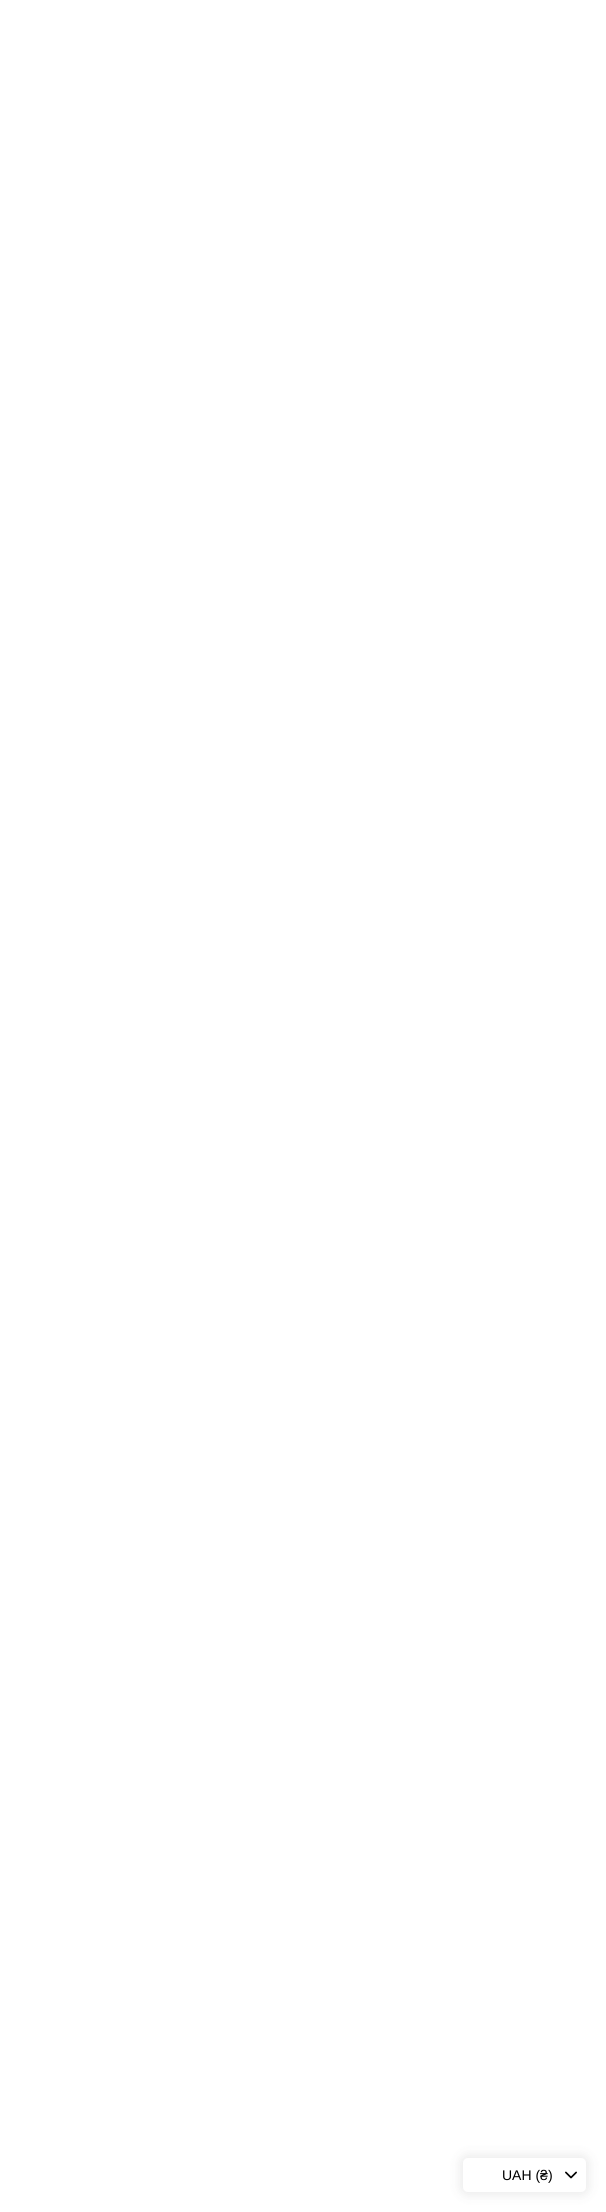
#include <cairo.h>
#include <math.h>
#include <stddef.h>

static cairo_t *c;
static void C(unsigned color){cairo_set_source_rgb(c, (color >> 16) / 255.0, (color >> 8 & 255) / 255.0, (color & 255) / 255.0);}
static void F(const char *family, double size, int italic, int bold){cairo_select_font_face(c, family, italic ? CAIRO_FONT_SLANT_ITALIC : CAIRO_FONT_SLANT_NORMAL,bold ? CAIRO_FONT_WEIGHT_BOLD : CAIRO_FONT_WEIGHT_NORMAL);cairo_set_font_size(c, size);}
static void T(double x, double y, const char *s){cairo_move_to(c, x, y);cairo_show_text(c, s);}
static void Q(double x, double y, double w, double h, double r){cairo_new_sub_path(c);cairo_arc(c, x + w - r, y + h - r, r, 0, M_PI / 2);cairo_arc(c, x + r, y + h - r, r, M_PI / 2, M_PI);cairo_arc(c, x + r, y + r, r, M_PI, 1.5 * M_PI);cairo_arc(c, x + w - r, y + r, r, 1.5 * M_PI, 2 * M_PI);cairo_close_path(c);}
static void S(double x, double y, double w, double h, double r, double blur, double alpha){cairo_push_group_with_content(c, CAIRO_CONTENT_ALPHA);cairo_set_operator(c, CAIRO_OPERATOR_SOURCE);for (int i = 15; i >= -15 && fmin(w, h) + blur * i / 3 > 0; i -= 2) {double e = blur * i / 6;cairo_set_source_rgba(c, 0, 0, 0, alpha * erfc((i - 1) / 8.5) / 2);Q(x - e, y - e, w + 2 * e, h + 2 * e, fmax(0, fmin(r + e + blur * .6, fmin(w, h) / 2 + e)));cairo_fill(c);}cairo_pattern_t *soft = cairo_pop_group(c);cairo_mask(c, soft);cairo_pattern_destroy(soft);}
static void I(const char *path, double x, double y, double w, double h){cairo_surface_t *image = cairo_image_surface_create_from_png(path);cairo_save(c);cairo_set_source_surface(c, image, x, y);cairo_rectangle(c, x, y, w, h);cairo_fill(c);cairo_restore(c);cairo_surface_destroy(image);}
int main(void) {
cairo_surface_t *surface = cairo_image_surface_create(CAIRO_FORMAT_RGB24, 606, 2212);
c = cairo_create(surface);
cairo_font_options_t *options = cairo_font_options_create();
cairo_font_options_set_hint_metrics(options, CAIRO_HINT_METRICS_OFF);
cairo_font_options_set_hint_style(options, CAIRO_HINT_STYLE_NONE);
cairo_set_font_options(c, options);
cairo_set_miter_limit(c, 4);
C(0xffffff);
cairo_paint(c);
C(0x3c3c3c);
S(459,2154,131,42,9,5,.09);
C(0xffffff);
Q(463,2158,123,34,5);
cairo_fill(c);
F("Arimo",14,0,0);
C(0x000000);
T(502,2180,"UAH (₴)");
I("1.png",565,2171,12,8);
cairo_surface_write_to_png(surface, "o.png");
cairo_font_options_destroy(options);
cairo_destroy(c);
cairo_surface_destroy(surface);
return 0;
}
